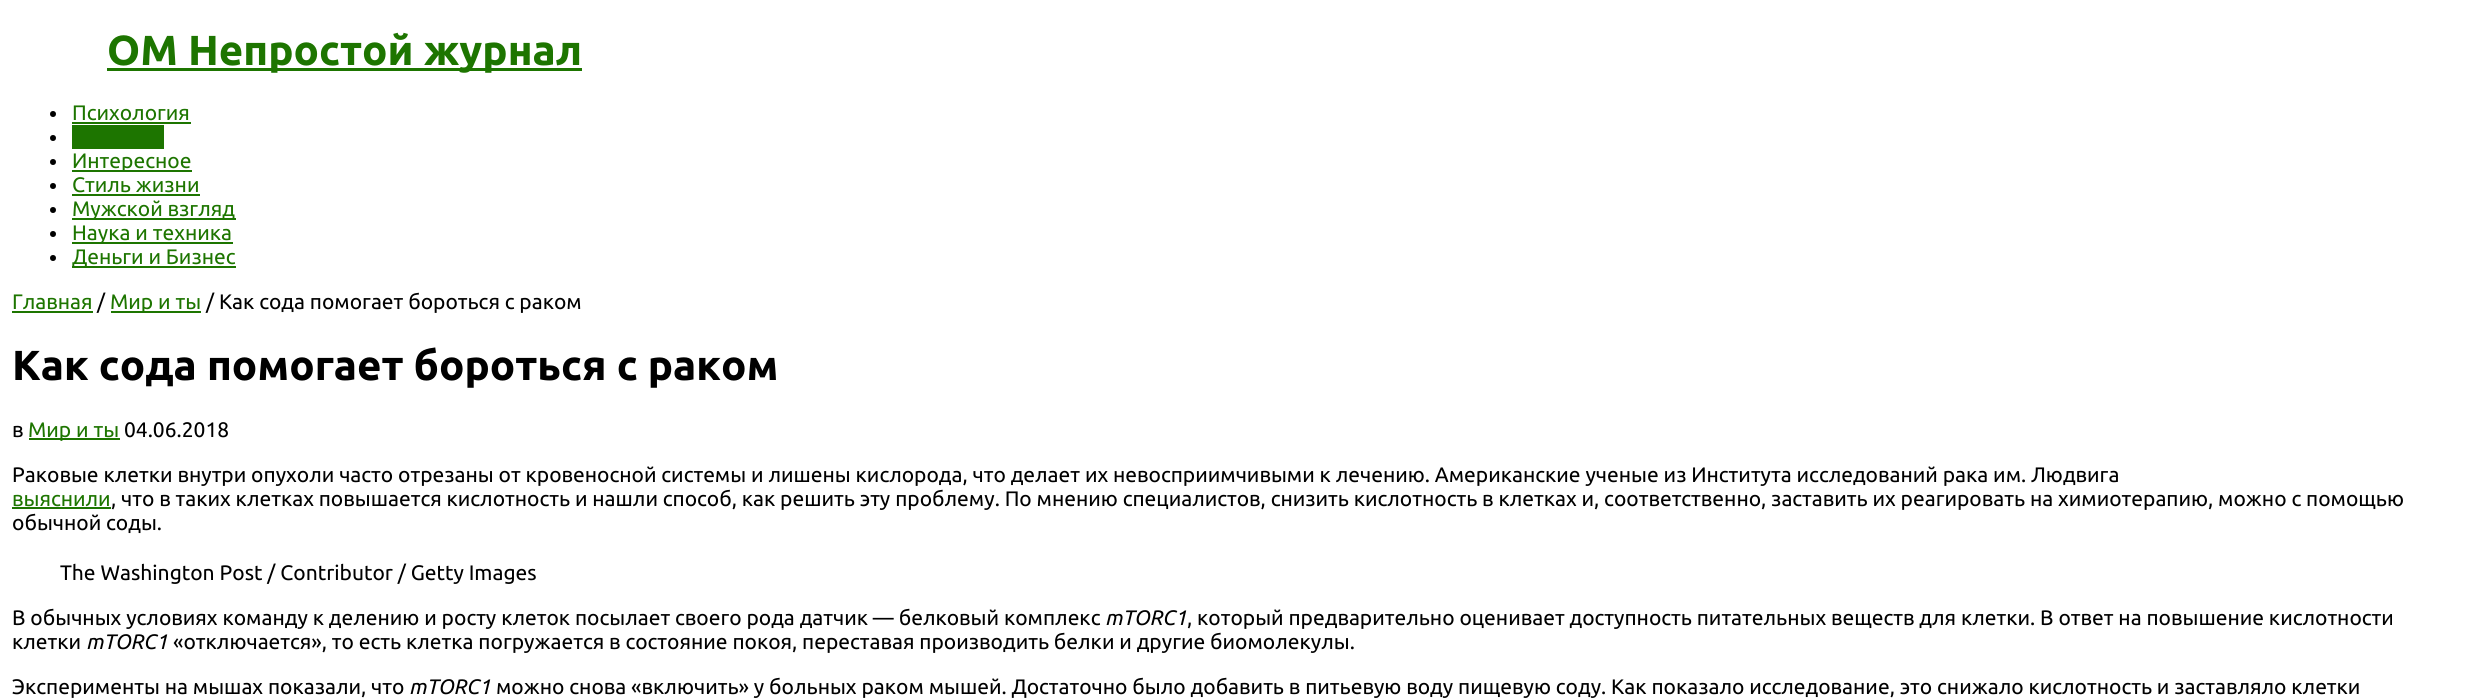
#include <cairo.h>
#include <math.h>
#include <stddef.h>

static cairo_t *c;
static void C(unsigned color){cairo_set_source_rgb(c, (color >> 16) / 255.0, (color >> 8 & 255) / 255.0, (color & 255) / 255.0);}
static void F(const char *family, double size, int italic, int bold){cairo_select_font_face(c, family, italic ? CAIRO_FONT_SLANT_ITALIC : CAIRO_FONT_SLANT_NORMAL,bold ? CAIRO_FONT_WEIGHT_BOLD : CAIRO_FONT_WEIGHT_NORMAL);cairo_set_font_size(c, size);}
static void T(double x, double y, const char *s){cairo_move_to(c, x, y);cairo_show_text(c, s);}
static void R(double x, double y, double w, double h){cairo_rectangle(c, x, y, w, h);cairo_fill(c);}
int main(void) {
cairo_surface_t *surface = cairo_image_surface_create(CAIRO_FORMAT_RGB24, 2473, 699);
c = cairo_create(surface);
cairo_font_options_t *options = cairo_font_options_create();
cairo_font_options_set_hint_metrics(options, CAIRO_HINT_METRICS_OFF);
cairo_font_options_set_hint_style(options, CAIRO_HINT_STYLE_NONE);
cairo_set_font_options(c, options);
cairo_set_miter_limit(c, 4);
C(0xffffff);
cairo_paint(c);
C(0x1d7500);
R(107,68,475,3);
F("Ubuntu",42,0,1);
T(107,65,"ОМ Непростой журнал");
C(0x000000);
cairo_new_path(c);
cairo_arc(c,53,114,3,0,2 * M_PI);
cairo_fill(c);
F("Ubuntu",21,0,0);
C(0x1d7500);
T(72,120,"Психология");
R(72,122,119,2);
C(0x000000);
cairo_new_path(c);
cairo_arc(c,53,138,3,0,2 * M_PI);
cairo_fill(c);
C(0x1d7500);
R(72,125,92,24);
C(0x000000);
cairo_arc(c,53,162,3,0,2 * M_PI);
cairo_fill(c);
C(0x1d7500);
R(72,170,120,2);
T(72,168,"Интересное");
C(0x000000);
cairo_new_path(c);
cairo_arc(c,53,186,3,0,2 * M_PI);
cairo_fill(c);
C(0x1d7500);
T(72,192,"Стиль жизни");
R(72,194,128,2);
C(0x000000);
cairo_new_path(c);
cairo_arc(c,53,210,3,0,2 * M_PI);
cairo_fill(c);
C(0x1d7500);
R(72,218,164,2);
T(72,216,"Мужской взгляд");
C(0x000000);
cairo_new_path(c);
cairo_arc(c,53,234,3,0,2 * M_PI);
cairo_fill(c);
C(0x1d7500);
R(72,242,161,2);
T(72,240,"Наука и техника");
C(0x000000);
cairo_new_path(c);
cairo_arc(c,53,258,3,0,2 * M_PI);
cairo_fill(c);
C(0x1d7500);
R(72,266,164,2);
T(72,264,"Деньги и Бизнес");
T(12,309,"Главная");
R(12,311,81,2);
C(0x000000);
T(97,309,"/");
C(0x1d7500);
R(111,311,90,2);
T(110,309,"Мир и ты");
C(0x000000);
T(206,309,"/ Как сода помогает бороться с раком");
F("Ubuntu",42,0,1);
T(12,380,"Как сода помогает бороться с раком");
F("Ubuntu",21,0,0);
T(12,437,"в");
C(0x1d7500);
R(29,438,91,2);
T(28,437,"Мир и ты");
C(0x000000);
T(124,437,"04.06.2018");
T(12,482,"Раковые клетки внутри опухоли часто отрезаны от кровеносной системы и лишены кислорода, что делает их невосприимчивыми к лечению. Американские ученые из Института исследований рака им. Людвига");
C(0x1d7500);
T(12,506,"выяснили");
R(12,507,99,2);
C(0x000000);
T(111,506,", что в таких клетках повышается кислотность и нашли способ, как решить эту проблему. По мнению специалистов, снизить кислотность в клетках и, соответственно, заставить их реагировать на химиотерапию, можно с помощью");
T(12,530,"обычной соды.");
T(60,580,"The Washington Post / Contributor / Getty Images");
T(12,625,"В обычных условиях команду к делению и росту клеток посылает своего рода датчик — белковый комплекс");
F("Ubuntu",21,1,0);
T(1105,625,"mTORC1");
F("Ubuntu",21,0,0);
T(1187,625,", который предварительно оценивает доступность питательных веществ для клетки. В ответ на повышение кислотности");
T(12,649,"клетки");
F("Ubuntu",21,1,0);
T(86,649,"mTORC1");
F("Ubuntu",21,0,0);
T(173,649,"«отключается», то есть клетка погружается в состояние покоя, переставая производить белки и другие биомолекулы.");
T(12,694,"Эксперименты на мышах показали, что");
F("Ubuntu",21,1,0);
T(409,694,"mTORC1");
F("Ubuntu",21,0,0);
T(496,694,"можно снова «включить» у больных раком мышей. Достаточно было добавить в питьевую воду пищевую соду. Как показало исследование, это снижало кислотность и заставляло клетки");
cairo_surface_write_to_png(surface, "o.png");
cairo_font_options_destroy(options);
cairo_destroy(c);
cairo_surface_destroy(surface);
return 0;
}
